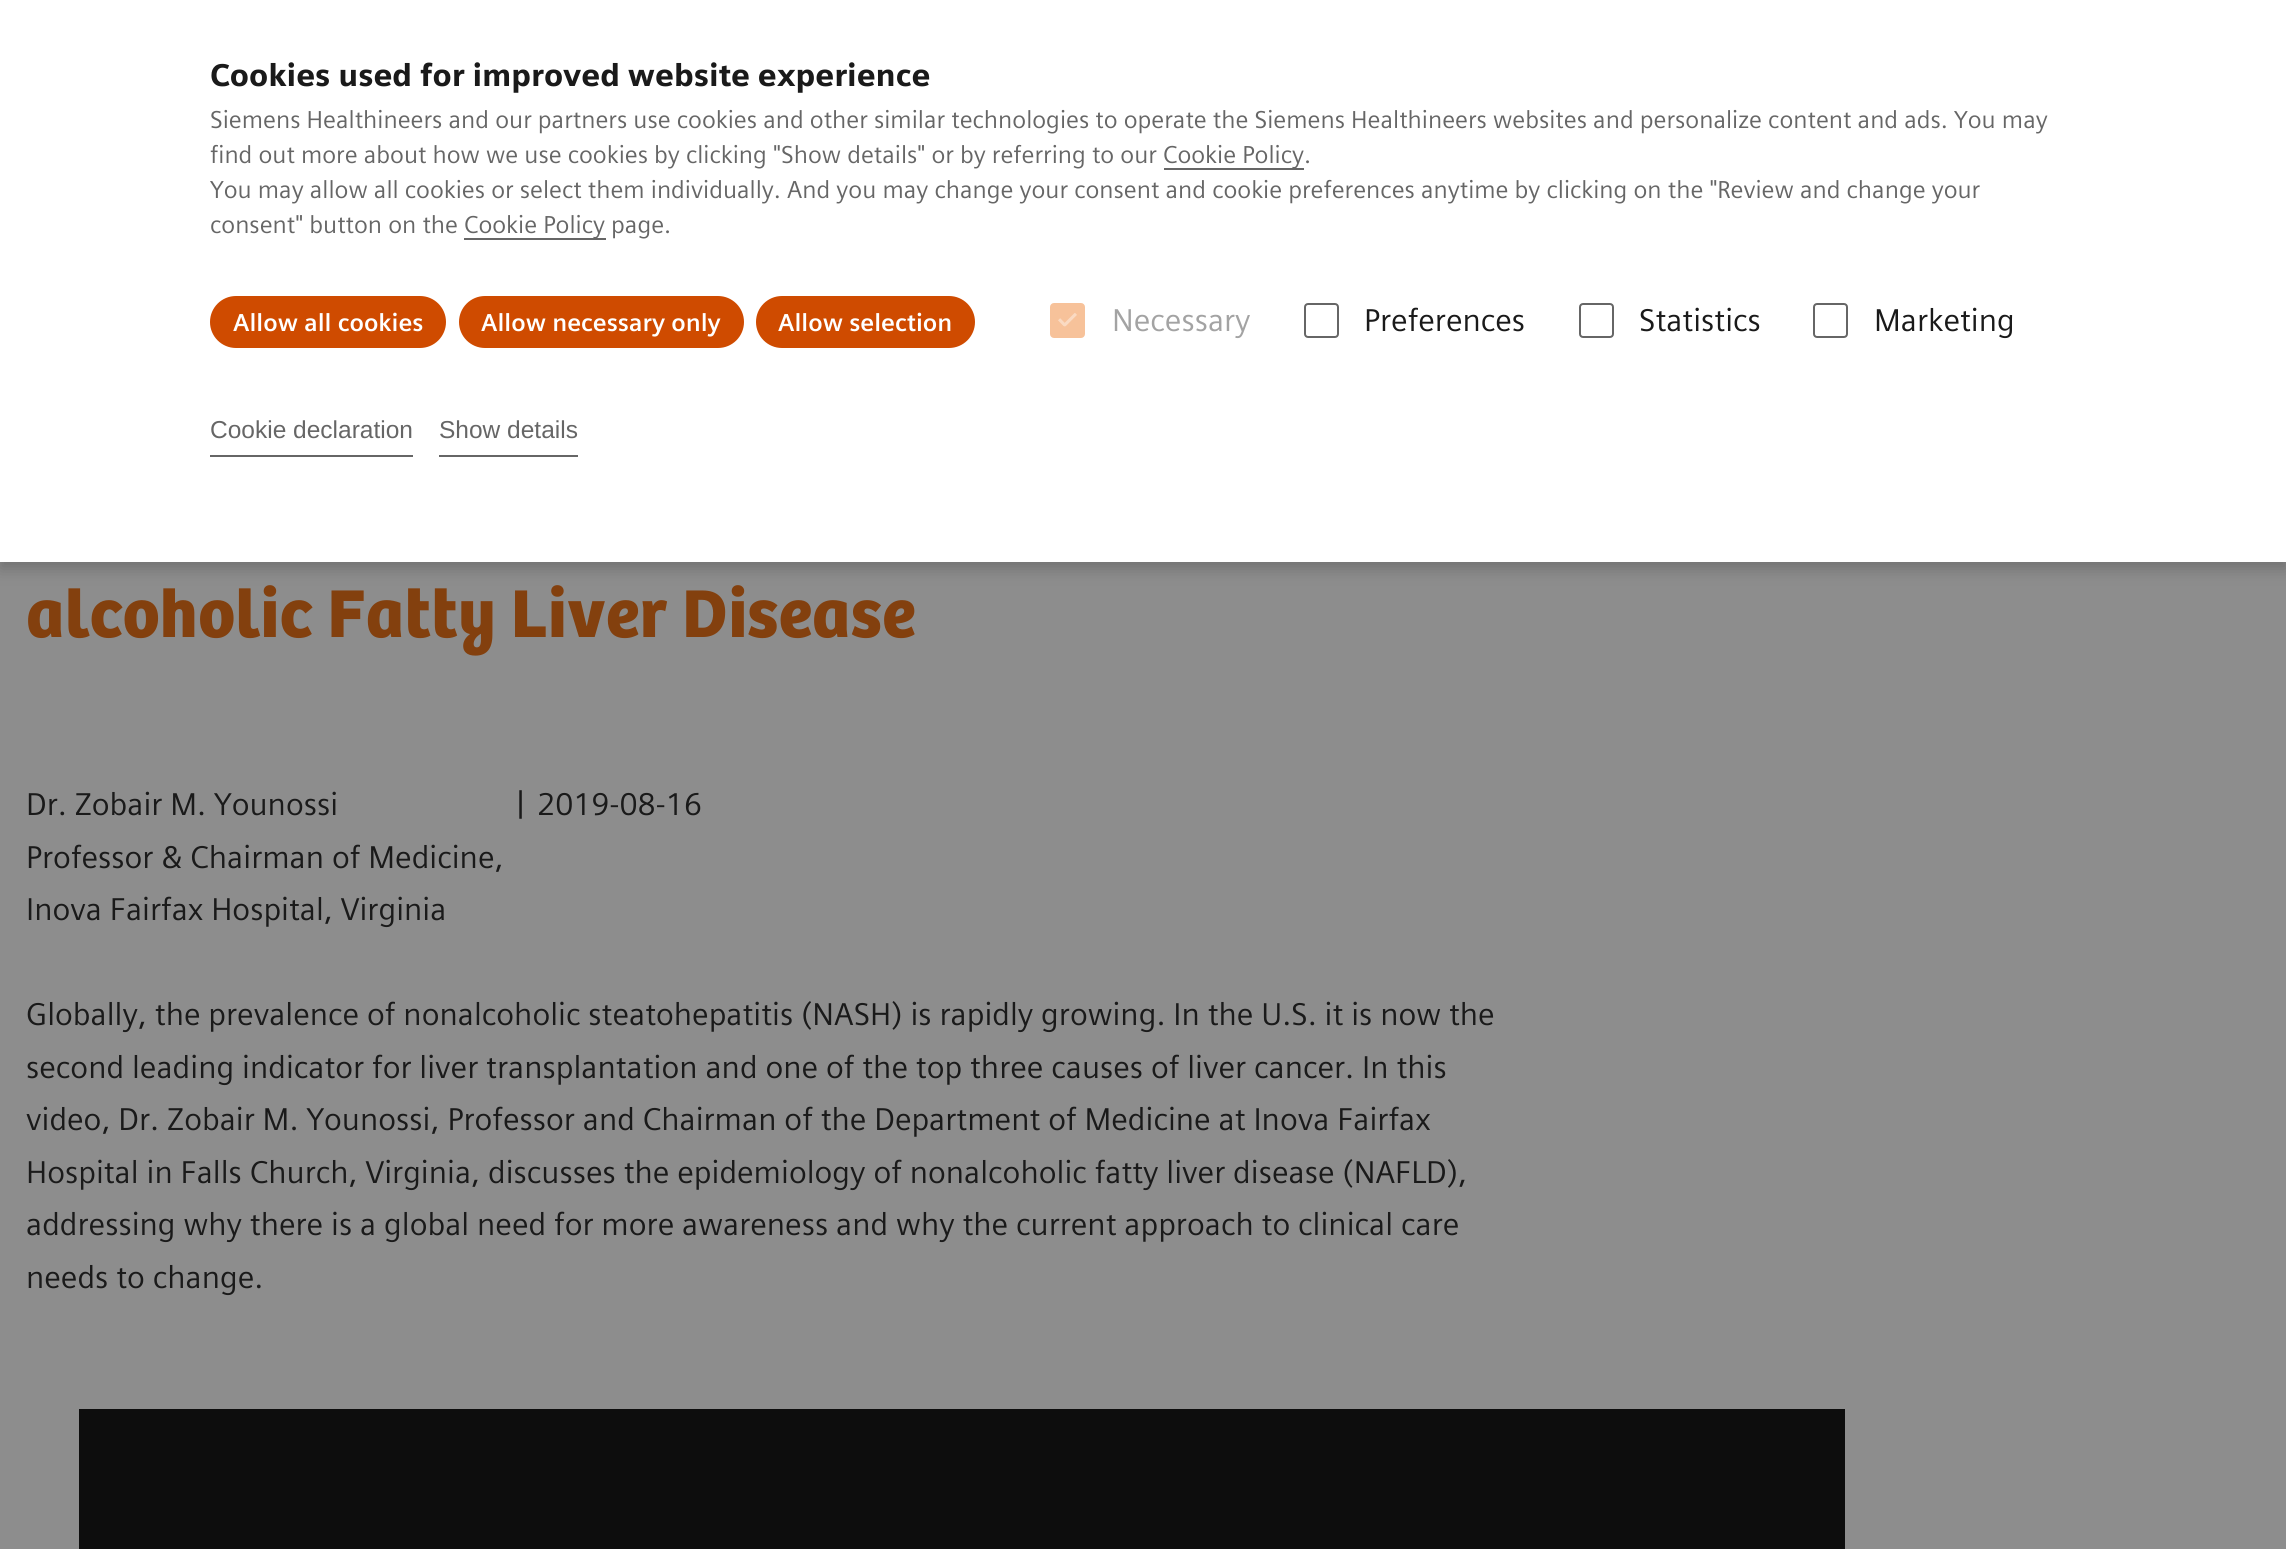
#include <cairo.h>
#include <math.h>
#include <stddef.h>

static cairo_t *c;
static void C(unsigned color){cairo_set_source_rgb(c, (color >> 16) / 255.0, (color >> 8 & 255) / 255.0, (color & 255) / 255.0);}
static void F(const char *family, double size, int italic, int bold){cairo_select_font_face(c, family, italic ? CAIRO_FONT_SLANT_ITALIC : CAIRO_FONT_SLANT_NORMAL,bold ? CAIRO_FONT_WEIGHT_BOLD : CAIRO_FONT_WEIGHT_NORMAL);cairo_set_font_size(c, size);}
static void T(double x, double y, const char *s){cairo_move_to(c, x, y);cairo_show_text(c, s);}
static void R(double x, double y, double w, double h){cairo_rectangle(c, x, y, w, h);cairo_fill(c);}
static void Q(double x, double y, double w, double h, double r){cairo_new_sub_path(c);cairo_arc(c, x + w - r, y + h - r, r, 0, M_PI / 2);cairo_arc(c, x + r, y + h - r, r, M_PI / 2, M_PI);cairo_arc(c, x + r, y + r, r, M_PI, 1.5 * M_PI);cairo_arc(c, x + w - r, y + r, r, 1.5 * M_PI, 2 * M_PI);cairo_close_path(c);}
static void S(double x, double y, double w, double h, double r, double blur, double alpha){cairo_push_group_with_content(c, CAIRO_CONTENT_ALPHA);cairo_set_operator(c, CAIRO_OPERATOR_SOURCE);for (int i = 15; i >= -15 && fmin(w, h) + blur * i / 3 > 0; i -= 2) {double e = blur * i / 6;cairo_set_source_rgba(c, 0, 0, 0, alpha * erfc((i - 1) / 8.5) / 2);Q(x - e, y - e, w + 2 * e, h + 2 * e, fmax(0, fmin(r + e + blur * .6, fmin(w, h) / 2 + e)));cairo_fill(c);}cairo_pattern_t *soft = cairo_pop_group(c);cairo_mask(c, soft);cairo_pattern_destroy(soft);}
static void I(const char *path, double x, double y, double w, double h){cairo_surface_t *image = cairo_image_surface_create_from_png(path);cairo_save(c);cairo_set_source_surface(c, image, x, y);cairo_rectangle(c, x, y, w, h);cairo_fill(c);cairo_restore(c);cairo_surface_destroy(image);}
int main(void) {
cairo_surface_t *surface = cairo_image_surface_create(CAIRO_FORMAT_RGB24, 2286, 1549);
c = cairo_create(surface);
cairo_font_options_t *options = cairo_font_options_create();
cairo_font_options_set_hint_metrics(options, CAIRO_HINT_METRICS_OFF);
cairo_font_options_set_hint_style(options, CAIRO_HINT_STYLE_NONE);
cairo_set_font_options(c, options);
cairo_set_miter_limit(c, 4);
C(0x8d8d8d);
cairo_paint(c);
C(0x000000);
S(0,7,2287,562,0,8,.2);
C(0xffffff);
R(0,0,2286,562);
F("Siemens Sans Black",31.5,0,0);
C(0x1a1a1a);
T(210,86,"Cookies used for improved website experience");
F("Siemens Sans",24.5,0,0);
C(0x666666);
T(210,128,"Siemens Healthineers and our partners use cookies and other similar technologies to operate the Siemens Healthineers websites and personalize content and ads. You may");
T(210,163,"find out more about how we use cookies by clicking \"Show details\" or by referring to our");
R(1164,168,140,2);
T(1163,163,"Cookie Policy.");
T(210,198,"You may allow all cookies or select them individually. And you may change your consent and cookie preferences anytime by clicking on the \"Review and change your");
T(210,233,"consent\" button on the");
R(464,238,142,2);
T(464,233,"Cookie Policy page.");
C(0xcf4b00);
Q(211,297,234,50,25);
cairo_fill_preserve(c);
cairo_stroke(c);
F("Siemens Sans",24.5,0,1);
C(0xffffff);
T(233,331,"Allow all cookies");
C(0xcf4b00);
Q(460,297,283,50,25);
cairo_fill_preserve(c);
cairo_stroke(c);
C(0xffffff);
T(481,331,"Allow necessary only");
C(0xcf4b00);
Q(757,297,217,50,25);
cairo_fill_preserve(c);
cairo_stroke(c);
C(0xffffff);
T(778,331,"Allow selection");
C(0xf7c29a);
Q(1051,304,33,33,3);
cairo_fill_preserve(c);
cairo_stroke(c);
I("1.png",1058,313,19,14);
F("Siemens Sans",31.5,0,0);
C(0xa3a3a3);
T(1112,331,"Necessary");
Q(1305,304,33,33,3);
C(0x666666);
cairo_stroke(c);
C(0x1a1a1a);
T(1364,331,"Preferences");
Q(1580,304,33,33,3);
C(0x666666);
cairo_stroke(c);
C(0x1a1a1a);
T(1639,331,"Statistics");
Q(1814,304,33,33,3);
C(0x666666);
cairo_stroke(c);
C(0x1a1a1a);
T(1874,331,"Marketing");
C(0x666666);
R(210,455,203,2);
F("Liberation Sans",24.5,0,0);
T(210,438,"Cookie declaration");
R(439,455,139,2);
T(439,438,"Show details");
F("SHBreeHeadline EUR",70,0,1);
C(0x83400e);
T(26,637,"alcoholic Fatty Liver Disease");
F("Siemens Sans",31.5,0,0);
C(0x1a1a1a);
T(26,815,"Dr. Zobair M. Younossi");
T(26,868,"Professor & Chairman of Medicine,");
T(26,920,"Inova Fairfax Hospital, Virginia");
T(516,812,"|");
T(537,815,"2019-08-16");
T(26,1025,"Globally, the prevalence of nonalcoholic steatohepatitis (NASH) is rapidly growing. In the U.S. it is now the");
T(26,1078,"second leading indicator for liver transplantation and one of the top three causes of liver cancer. In this");
T(26,1130,"video, Dr. Zobair M. Younossi, Professor and Chairman of the Department of Medicine at Inova Fairfax");
T(26,1183,"Hospital in Falls Church, Virginia, discusses the epidemiology of nonalcoholic fatty liver disease (NAFLD),");
T(26,1235,"addressing why there is a global need for more awareness and why the current approach to clinical care");
T(26,1288,"needs to change.");
C(0x0d0d0d);
R(79,1409,1766,140);
cairo_surface_write_to_png(surface, "o.png");
cairo_font_options_destroy(options);
cairo_destroy(c);
cairo_surface_destroy(surface);
return 0;
}
